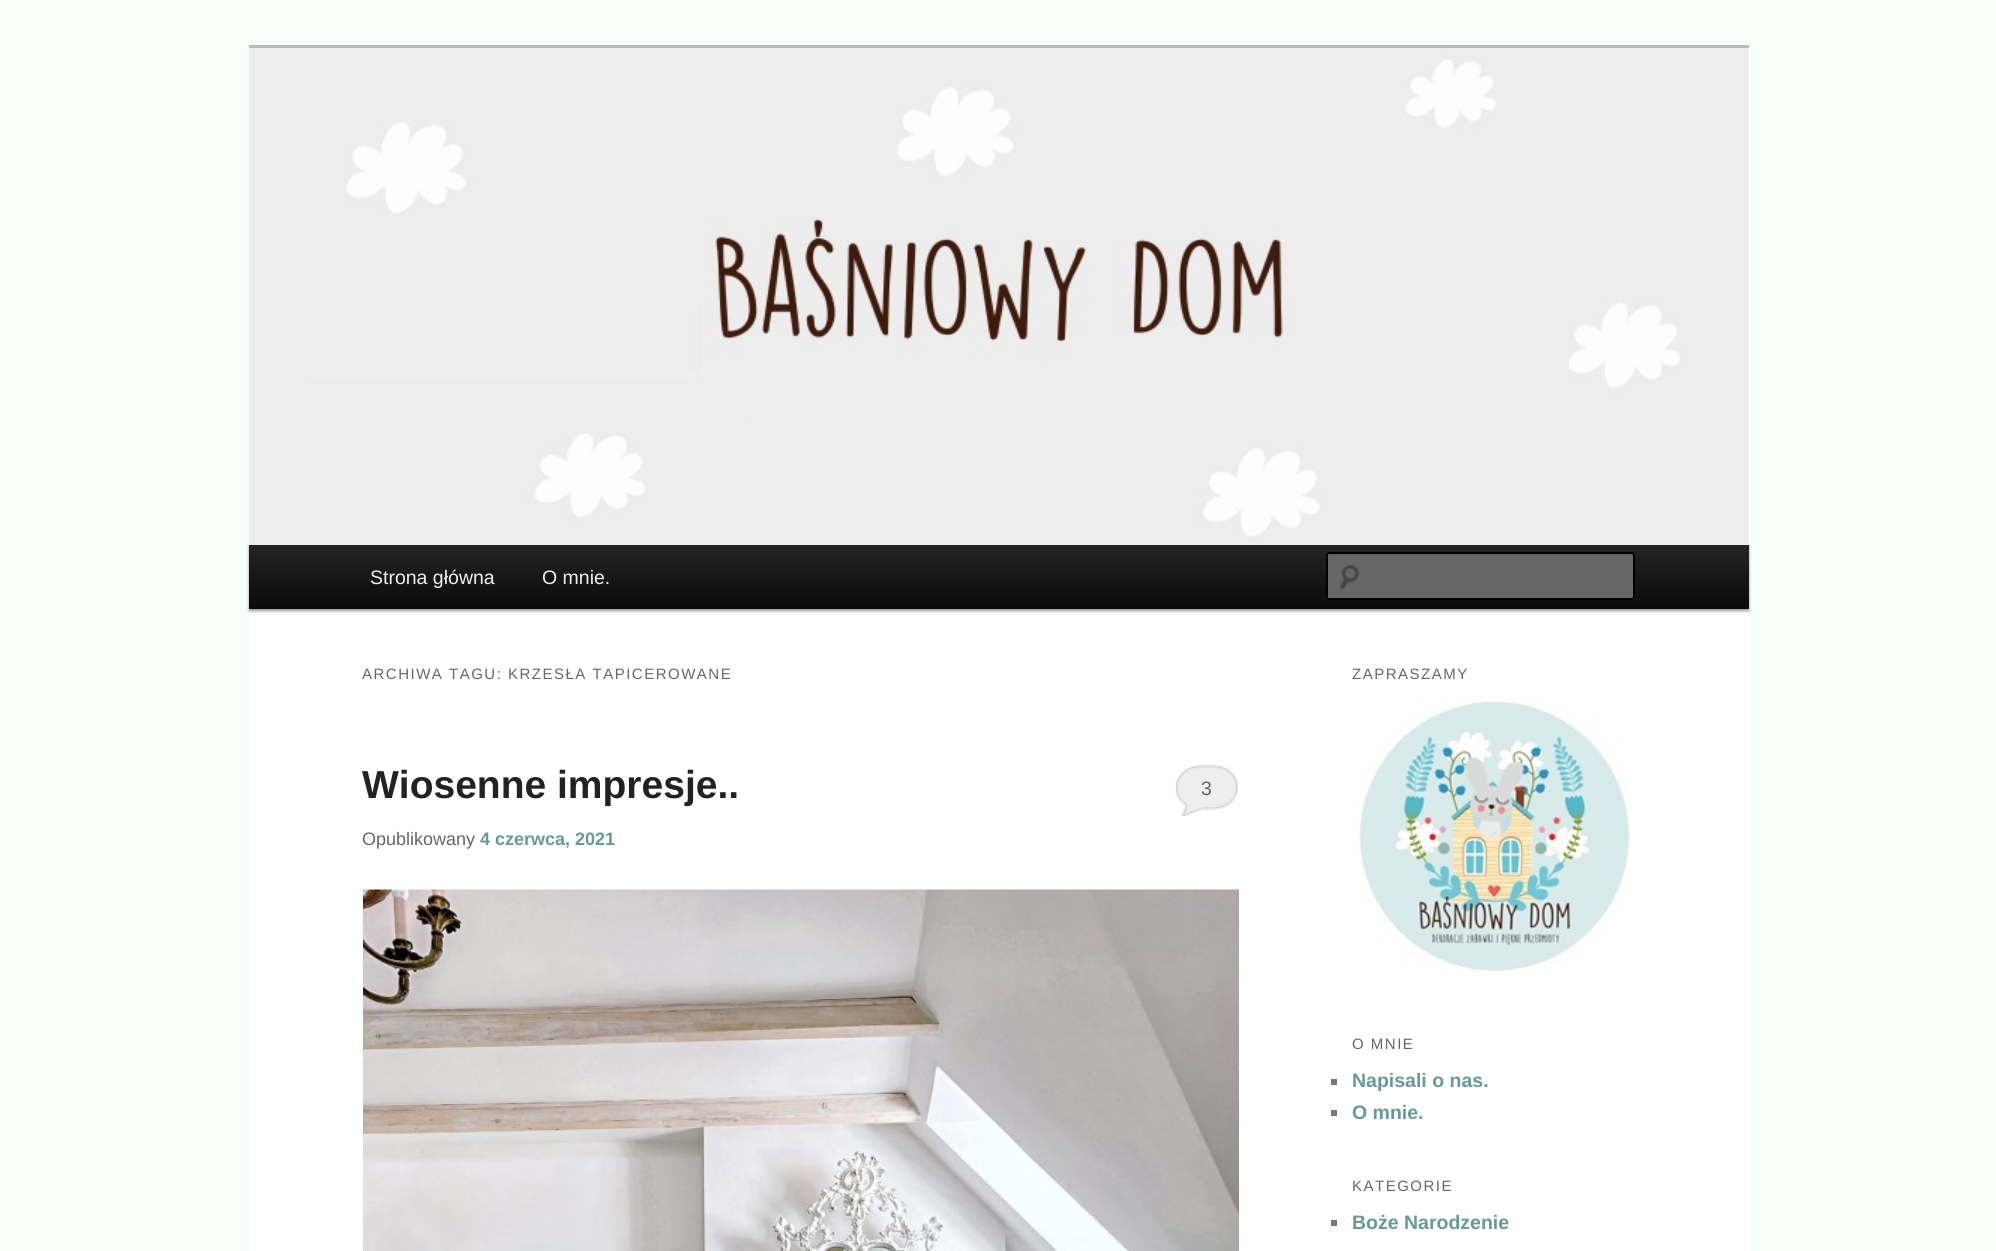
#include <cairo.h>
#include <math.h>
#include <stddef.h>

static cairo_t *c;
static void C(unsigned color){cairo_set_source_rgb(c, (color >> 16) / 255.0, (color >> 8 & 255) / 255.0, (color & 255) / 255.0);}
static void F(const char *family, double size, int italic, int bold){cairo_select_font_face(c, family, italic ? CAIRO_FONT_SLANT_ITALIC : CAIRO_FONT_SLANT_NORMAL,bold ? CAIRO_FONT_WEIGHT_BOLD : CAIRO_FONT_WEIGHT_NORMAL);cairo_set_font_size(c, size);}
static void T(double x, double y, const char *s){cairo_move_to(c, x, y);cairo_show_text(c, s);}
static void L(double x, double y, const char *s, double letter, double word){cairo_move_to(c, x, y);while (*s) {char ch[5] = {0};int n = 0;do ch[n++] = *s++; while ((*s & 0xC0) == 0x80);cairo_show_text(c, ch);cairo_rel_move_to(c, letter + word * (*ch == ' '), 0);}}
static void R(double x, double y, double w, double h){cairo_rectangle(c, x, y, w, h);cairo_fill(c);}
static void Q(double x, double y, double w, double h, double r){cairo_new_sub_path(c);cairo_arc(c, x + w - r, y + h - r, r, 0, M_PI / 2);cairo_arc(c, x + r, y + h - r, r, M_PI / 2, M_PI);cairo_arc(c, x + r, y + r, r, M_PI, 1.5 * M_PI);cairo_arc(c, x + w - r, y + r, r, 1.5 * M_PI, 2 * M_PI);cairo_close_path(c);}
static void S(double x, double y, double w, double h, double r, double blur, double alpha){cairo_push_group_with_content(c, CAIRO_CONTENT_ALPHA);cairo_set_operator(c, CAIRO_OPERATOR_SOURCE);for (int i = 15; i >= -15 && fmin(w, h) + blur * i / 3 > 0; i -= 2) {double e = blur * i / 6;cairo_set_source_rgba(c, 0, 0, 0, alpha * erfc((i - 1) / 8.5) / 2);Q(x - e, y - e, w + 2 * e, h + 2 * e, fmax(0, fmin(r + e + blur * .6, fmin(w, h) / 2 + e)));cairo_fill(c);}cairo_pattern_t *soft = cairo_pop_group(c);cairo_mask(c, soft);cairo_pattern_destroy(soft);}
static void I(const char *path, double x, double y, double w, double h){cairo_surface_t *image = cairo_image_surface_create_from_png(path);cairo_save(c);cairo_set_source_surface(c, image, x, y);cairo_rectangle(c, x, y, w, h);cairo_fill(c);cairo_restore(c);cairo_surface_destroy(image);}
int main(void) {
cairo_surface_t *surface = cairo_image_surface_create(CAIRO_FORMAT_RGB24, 1996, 1251);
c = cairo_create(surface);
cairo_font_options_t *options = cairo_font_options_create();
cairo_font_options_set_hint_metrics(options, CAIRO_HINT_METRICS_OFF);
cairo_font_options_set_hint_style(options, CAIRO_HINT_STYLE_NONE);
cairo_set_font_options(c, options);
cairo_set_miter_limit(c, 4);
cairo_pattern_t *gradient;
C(0xf7fffa);
cairo_paint(c);
C(0xffffff);
R(249,544,1500,707);
C(0xbbbbbb);
R(249,45,1500,3);
C(0x000000);
S(249,546,1500,65,0,1.5,.4);
I("1.png",249,48,1500,497);
gradient = cairo_pattern_create_linear(999,544,999,609);
cairo_pattern_add_color_stop_rgba(gradient,0,0.145,0.145,0.145,1);
cairo_pattern_add_color_stop_rgba(gradient,1,0.039,0.039,0.039,1);
cairo_set_source(c,gradient);
cairo_pattern_destroy(gradient);
R(249,545,1500,64);
F("Liberation Sans",19.5,0,0);
C(0xeeeeee);
T(370,584,"Strona główna");
T(542,584,"O mnie.");
C(0x666666);
Q(1326,552,309,48,3);
cairo_fill(c);
I("2.png",1339,564,21,26);
C(0x5c5c5c);
cairo_new_path(c);
cairo_move_to(c,1329,555);
cairo_line_to(c,1632,555);
cairo_line_to(c,1634,556);
cairo_curve_to(c,1634,555,1634,554,1632,554);
cairo_line_to(c,1330,554);
cairo_line_to(c,1328,555);
cairo_line_to(c,1328,556);
cairo_close_path(c);
cairo_fill(c);
Q(1327,553,307,46,2);
C(0x000000);
cairo_stroke(c);
F("Liberation Sans",15,0,0);
C(0x666666);
L(362,679,"ARCHIWA TAGU: KRZESŁA TAPICEROWANE",1.5,0);
F("Liberation Sans",39,0,1);
C(0x222222);
T(362,798,"Wiosenne impresje..");
C(0xeeeeee);
R(1175,764,63,52);
I("3.png",1175,762,64,54);
F("Liberation Sans",19.5,0,0);
C(0x666666);
T(1201,795,"3");
F("Liberation Sans",18,0,0);
T(362,845,"Opublikowany");
F("Liberation Sans",18,0,1);
C(0x669999);
T(480,845,"4 czerwca, 2021");
I("4.png",363,889,876,362);
F("Liberation Sans",15,0,0);
C(0x666666);
L(1352,679,"ZAPRASZAMY",1.5,0);
I("5.png",1359,701,271,270);
L(1352,1049,"O MNIE",1.5,0);
C(0x777777);
R(1331,1079,6,6);
F("Liberation Sans",19.5,0,1);
C(0x669999);
T(1352,1087,"Napisali o nas.");
C(0x777777);
R(1331,1110,6,6);
C(0x669999);
T(1352,1119,"O mnie.");
F("Liberation Sans",15,0,0);
C(0x666666);
L(1352,1191,"KATEGORIE",1.5,0);
C(0x777777);
R(1331,1220,6,6);
F("Liberation Sans",19.5,0,1);
C(0x669999);
T(1352,1229,"Boże Narodzenie");
cairo_surface_write_to_png(surface, "o.png");
cairo_font_options_destroy(options);
cairo_destroy(c);
cairo_surface_destroy(surface);
return 0;
}
